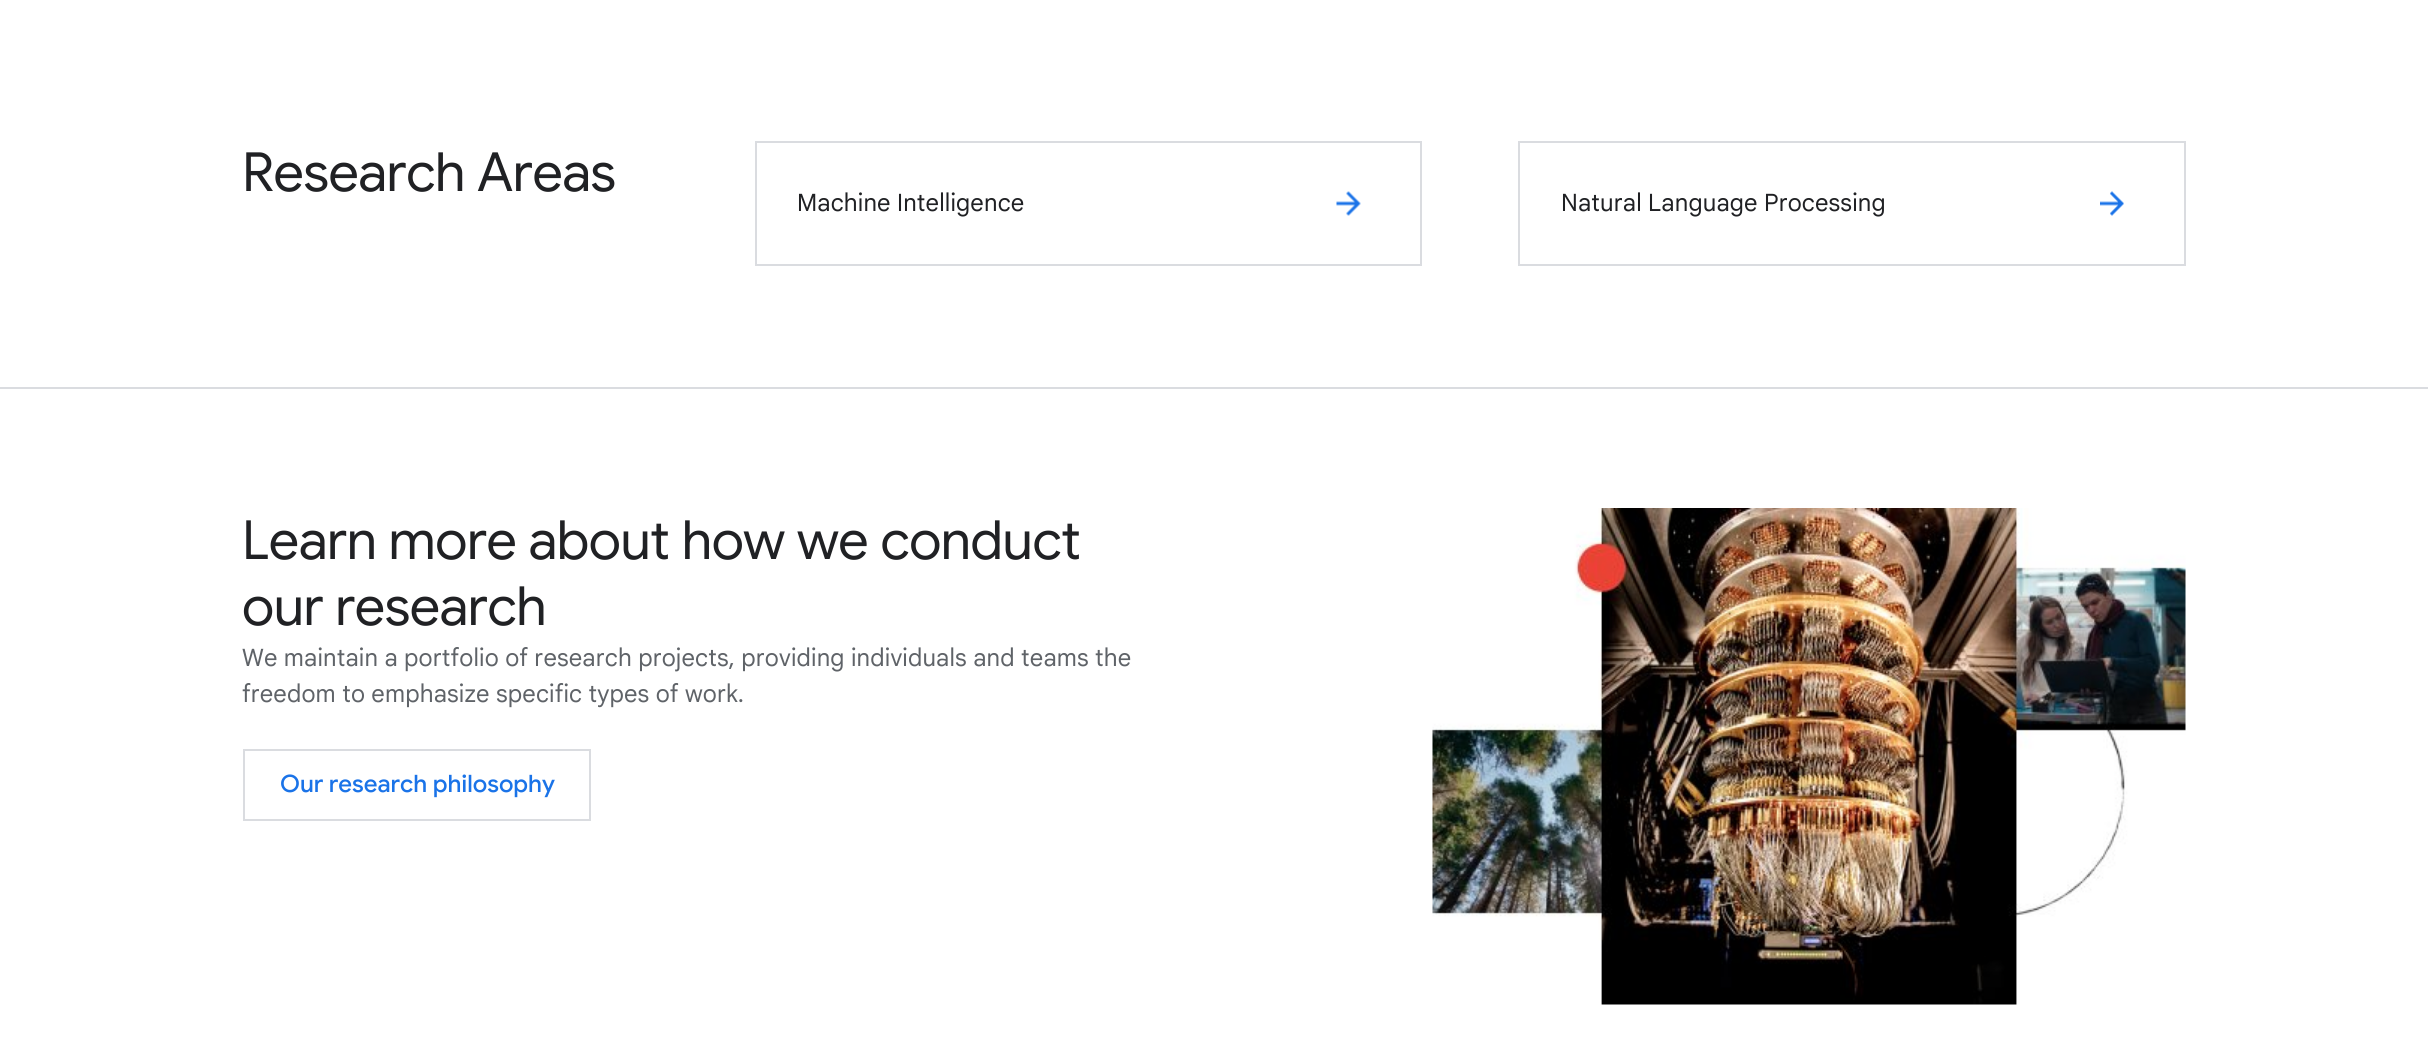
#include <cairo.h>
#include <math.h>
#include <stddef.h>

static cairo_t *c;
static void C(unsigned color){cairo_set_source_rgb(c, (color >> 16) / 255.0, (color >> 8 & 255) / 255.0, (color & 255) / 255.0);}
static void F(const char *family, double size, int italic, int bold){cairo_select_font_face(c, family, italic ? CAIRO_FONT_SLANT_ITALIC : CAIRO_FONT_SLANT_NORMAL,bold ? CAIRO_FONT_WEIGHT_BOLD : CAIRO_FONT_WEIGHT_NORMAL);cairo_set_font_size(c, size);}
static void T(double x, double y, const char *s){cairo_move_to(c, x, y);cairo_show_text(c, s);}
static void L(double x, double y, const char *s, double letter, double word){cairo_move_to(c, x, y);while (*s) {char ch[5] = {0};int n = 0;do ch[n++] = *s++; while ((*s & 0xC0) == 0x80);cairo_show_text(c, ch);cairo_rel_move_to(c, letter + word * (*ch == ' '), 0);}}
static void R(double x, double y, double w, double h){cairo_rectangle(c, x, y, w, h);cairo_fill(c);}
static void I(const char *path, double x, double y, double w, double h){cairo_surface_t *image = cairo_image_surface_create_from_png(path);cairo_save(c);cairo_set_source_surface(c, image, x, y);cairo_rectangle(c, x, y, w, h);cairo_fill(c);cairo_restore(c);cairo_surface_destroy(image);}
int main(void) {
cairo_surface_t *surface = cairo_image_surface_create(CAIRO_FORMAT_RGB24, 2428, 1051);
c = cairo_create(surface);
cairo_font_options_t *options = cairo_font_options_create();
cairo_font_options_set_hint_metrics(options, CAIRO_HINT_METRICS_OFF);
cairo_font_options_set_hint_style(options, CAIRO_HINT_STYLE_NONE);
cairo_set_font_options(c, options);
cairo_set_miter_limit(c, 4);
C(0xffffff);
cairo_paint(c);
F("Google Sans",54,0,0);
C(0x202124);
L(242,191,"Research Areas",-.4,0);
cairo_rectangle(c,756,142,665,123);
C(0xdadce0);
cairo_stroke(c);
F("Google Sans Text",24,0,0);
C(0x202124);
L(797,211,"Machine Intelligence",.15,0);
I("1.png",1336,191,25,25);
cairo_rectangle(c,1519,142,666,123);
C(0xdadce0);
cairo_stroke(c);
C(0x202124);
L(1561,211,"Natural Language Processing",.15,0);
I("2.png",2100,191,24,25);
C(0xdadce0);
R(0,387,2428,2);
F("Google Sans",54,0,0);
C(0x202124);
L(242,559,"Learn more about how we conduct",-.4,0);
L(242,625,"our research",-.4,0);
F("Google Sans Text",24,0,0);
C(0x5f6368);
L(242,666,"We maintain a portfolio of research projects, providing individuals and teams the",.15,0);
L(242,702,"freedom to emphasize specific types of work.",.15,0);
cairo_rectangle(c,244,750,346,70);
C(0xdadce0);
cairo_stroke(c);
F("Google Sans Medium",24,0,0);
C(0x1a73e8);
T(280,792,"Our research philosophy");
I("3.png",1432,508,754,497);
cairo_surface_write_to_png(surface, "o.png");
cairo_font_options_destroy(options);
cairo_destroy(c);
cairo_surface_destroy(surface);
return 0;
}
